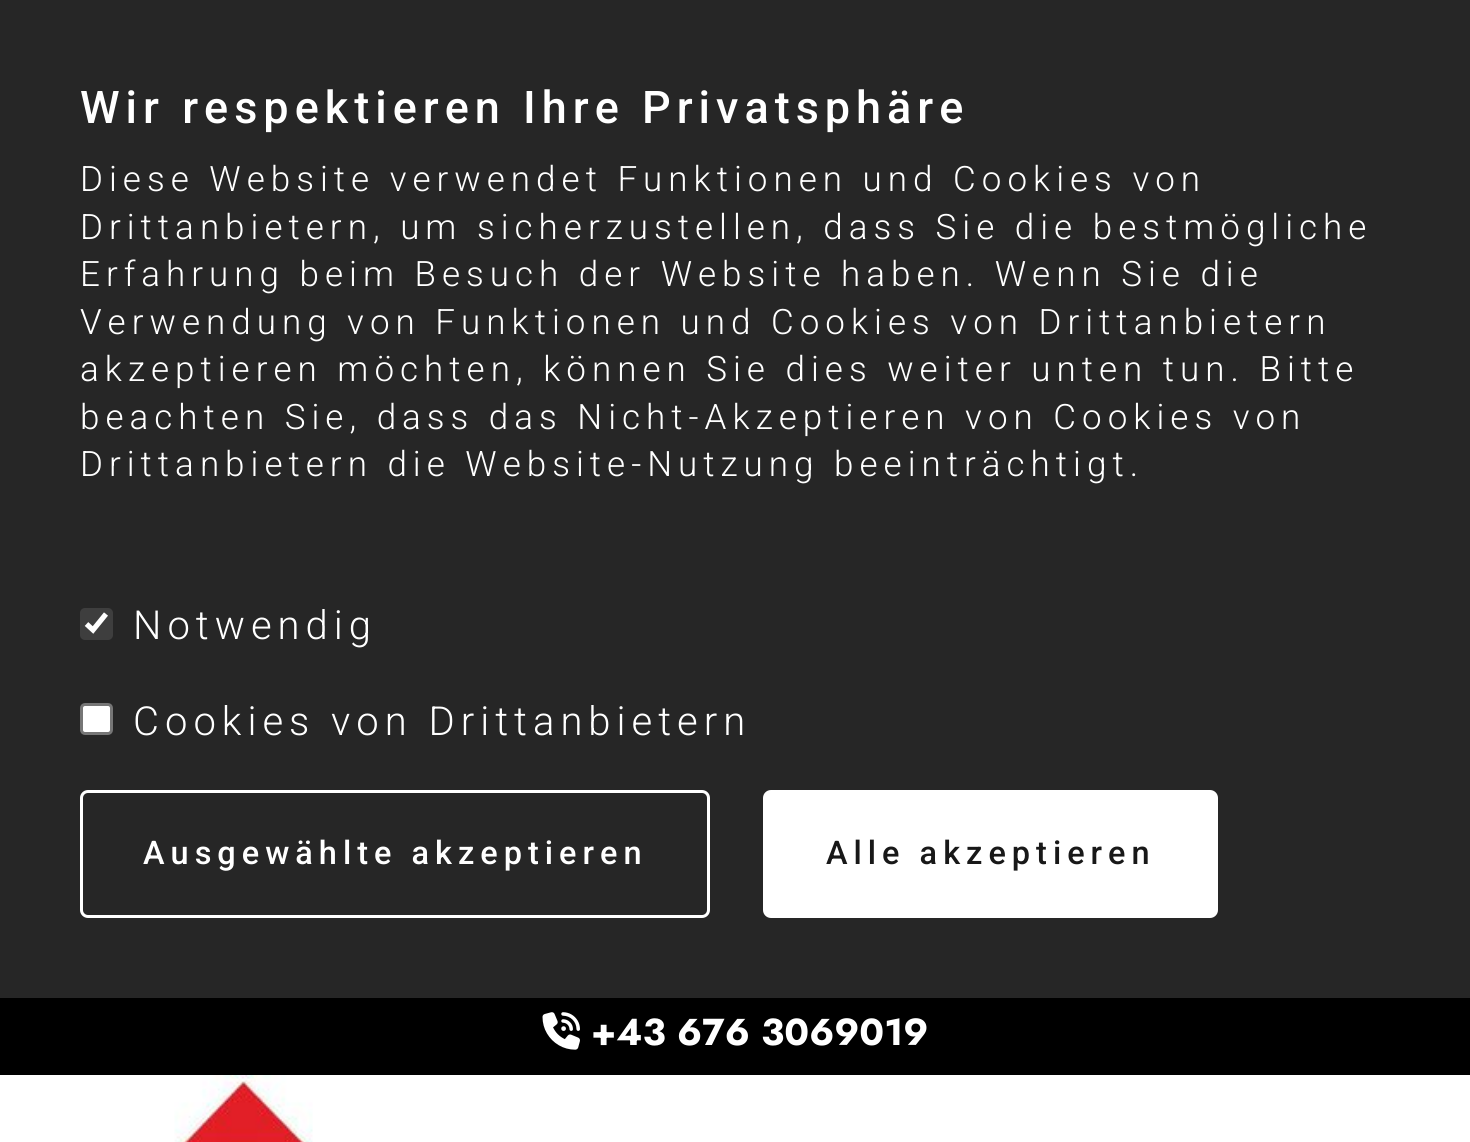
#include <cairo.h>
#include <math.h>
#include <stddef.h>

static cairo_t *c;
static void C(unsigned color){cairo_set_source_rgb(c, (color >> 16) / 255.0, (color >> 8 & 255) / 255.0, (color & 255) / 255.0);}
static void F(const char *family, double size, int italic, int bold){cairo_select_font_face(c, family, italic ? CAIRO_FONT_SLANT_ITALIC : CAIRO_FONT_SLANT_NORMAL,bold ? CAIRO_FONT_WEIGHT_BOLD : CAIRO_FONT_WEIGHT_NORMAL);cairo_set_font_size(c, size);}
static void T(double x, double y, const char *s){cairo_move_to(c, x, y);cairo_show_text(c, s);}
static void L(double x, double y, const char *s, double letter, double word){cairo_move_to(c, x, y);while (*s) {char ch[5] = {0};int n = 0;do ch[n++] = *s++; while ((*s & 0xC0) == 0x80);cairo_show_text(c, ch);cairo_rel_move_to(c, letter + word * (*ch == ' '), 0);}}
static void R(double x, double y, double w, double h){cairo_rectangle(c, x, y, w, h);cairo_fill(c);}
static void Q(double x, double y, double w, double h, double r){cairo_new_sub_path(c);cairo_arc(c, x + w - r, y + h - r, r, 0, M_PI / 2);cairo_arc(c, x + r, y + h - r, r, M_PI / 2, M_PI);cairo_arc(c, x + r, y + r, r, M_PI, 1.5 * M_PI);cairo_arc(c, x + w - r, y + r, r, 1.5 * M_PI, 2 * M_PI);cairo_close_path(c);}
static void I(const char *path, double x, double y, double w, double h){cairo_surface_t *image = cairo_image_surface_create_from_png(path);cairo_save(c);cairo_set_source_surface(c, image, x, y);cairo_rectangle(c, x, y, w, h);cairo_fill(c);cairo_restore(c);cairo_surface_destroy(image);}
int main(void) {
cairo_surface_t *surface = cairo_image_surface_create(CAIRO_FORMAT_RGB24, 1470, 1142);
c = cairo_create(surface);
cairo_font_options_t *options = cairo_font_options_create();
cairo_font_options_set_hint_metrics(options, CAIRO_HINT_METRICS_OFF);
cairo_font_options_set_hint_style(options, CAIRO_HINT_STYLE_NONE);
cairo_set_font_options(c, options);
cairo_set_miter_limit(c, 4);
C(0xffffff);
cairo_paint(c);
C(0x262626);
R(0,0,1470,998);
F("Roboto Medium",45,0,0);
C(0xffffff);
L(80,123,"Wir respektieren Ihre Privatsphäre",6,0);
F("Roboto Light",35,0,0);
L(80,191,"Diese Website verwendet Funktionen und Cookies von",6,0);
L(80,239,"Drittanbietern, um sicherzustellen, dass Sie die bestmögliche",6,0);
L(80,286,"Erfahrung beim Besuch der Website haben. Wenn Sie die",6,0);
L(80,334,"Verwendung von Funktionen und Cookies von Drittanbietern",6,0);
L(80,381,"akzeptieren möchten, können Sie dies weiter unten tun. Bitte",6,0);
L(80,429,"beachten Sie, dass das Nicht-Akzeptieren von Cookies von",6,0);
L(80,476,"Drittanbietern die Website-Nutzung beeinträchtigt.",6,0);
C(0x3e3e3e);
Q(80,608,33,32,5);
cairo_fill(c);
cairo_new_path(c);
cairo_move_to(c,86.5,624);
cairo_line_to(c,93,630);
cairo_line_to(c,106,614);
C(0xffffff);
cairo_set_line_width(c,5.2);
cairo_stroke(c);
F("Roboto Light",40,0,0);
L(133,639,"Notwendig",6,0);
Q(81.5,704.5,30,29,3.5);
cairo_fill_preserve(c);
C(0x767676);
cairo_set_line_width(c,3);
cairo_stroke(c);
C(0xffffff);
L(133,735,"Cookies von Drittanbietern",6,0);
Q(81.5,791.5,627,125,6.5);
cairo_stroke(c);
F("Roboto Medium",32.5,0,0);
L(143,864,"Ausgewählte akzeptieren",6,0);
Q(764.5,791.5,452,125,6.5);
cairo_fill_preserve(c);
cairo_stroke(c);
C(0x181818);
L(826,864,"Alle akzeptieren",6,0);
C(0x000000);
R(0,998,1470,77);
I("1.png",542,1012,38,38);
F("Jost",37.5,0,1);
C(0xffffff);
T(591,1045,"+43 676 3069019");
I("2.png",174,1075,139,67);
cairo_surface_write_to_png(surface, "o.png");
cairo_font_options_destroy(options);
cairo_destroy(c);
cairo_surface_destroy(surface);
return 0;
}
